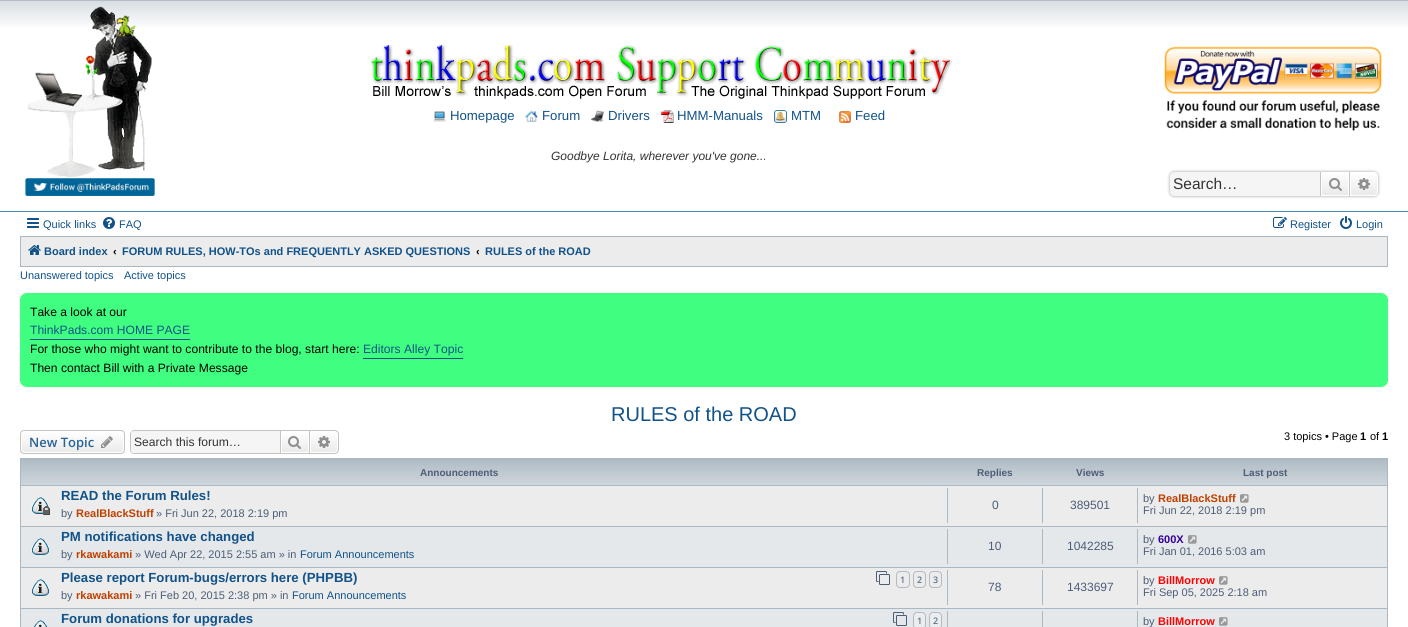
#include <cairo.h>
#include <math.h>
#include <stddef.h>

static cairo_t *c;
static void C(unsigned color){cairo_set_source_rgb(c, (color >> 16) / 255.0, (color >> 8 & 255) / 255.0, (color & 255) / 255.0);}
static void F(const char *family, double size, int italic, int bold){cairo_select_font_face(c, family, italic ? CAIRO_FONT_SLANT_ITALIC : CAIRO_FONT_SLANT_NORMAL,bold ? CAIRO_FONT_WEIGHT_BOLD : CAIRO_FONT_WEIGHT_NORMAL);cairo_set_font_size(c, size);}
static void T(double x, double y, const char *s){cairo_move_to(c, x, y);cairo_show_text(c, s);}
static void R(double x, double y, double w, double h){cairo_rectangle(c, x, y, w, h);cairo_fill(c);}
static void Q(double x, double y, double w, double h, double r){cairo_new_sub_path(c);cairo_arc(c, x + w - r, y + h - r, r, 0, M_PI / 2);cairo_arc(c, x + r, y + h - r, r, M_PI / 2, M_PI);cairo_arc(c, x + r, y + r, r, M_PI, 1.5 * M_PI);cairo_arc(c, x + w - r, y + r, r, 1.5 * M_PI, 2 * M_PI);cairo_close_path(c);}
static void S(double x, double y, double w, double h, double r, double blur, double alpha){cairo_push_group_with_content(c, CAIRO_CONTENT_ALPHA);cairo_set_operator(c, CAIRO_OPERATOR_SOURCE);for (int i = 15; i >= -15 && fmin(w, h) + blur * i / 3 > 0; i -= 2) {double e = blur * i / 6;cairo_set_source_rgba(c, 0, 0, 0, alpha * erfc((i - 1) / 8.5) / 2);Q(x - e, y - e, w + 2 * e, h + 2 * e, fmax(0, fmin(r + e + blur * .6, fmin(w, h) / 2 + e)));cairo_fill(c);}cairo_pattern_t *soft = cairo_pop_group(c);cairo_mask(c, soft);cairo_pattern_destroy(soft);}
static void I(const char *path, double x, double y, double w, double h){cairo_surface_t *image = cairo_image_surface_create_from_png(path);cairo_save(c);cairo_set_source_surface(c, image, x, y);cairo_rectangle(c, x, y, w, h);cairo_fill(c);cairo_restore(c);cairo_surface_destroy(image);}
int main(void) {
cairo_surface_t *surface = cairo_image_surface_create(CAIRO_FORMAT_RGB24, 1408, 627);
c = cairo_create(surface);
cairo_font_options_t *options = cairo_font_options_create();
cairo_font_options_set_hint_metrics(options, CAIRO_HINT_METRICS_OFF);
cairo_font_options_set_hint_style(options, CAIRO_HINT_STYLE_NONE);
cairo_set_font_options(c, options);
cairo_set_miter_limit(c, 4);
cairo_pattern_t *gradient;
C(0xffffff);
cairo_paint(c);
I("1.png",0,0,1408,27);
C(0x4787a7);
R(0,211,1408,1);
I("2.png",27,6,126,171);
I("3.png",25,178,130,18);
I("4.png",370,45,583,54);
I("5.png",433,111,13,11);
F("Liberation Sans",13.2,0,0);
C(0x105289);
T(450,120,"Homepage");
I("6.png",525,110,13,13);
T(542,120,"Forum");
I("7.png",591,110,13,12);
T(608,120,"Drivers");
I("8.png",661,110,13,13);
T(677,120,"HMM-Manuals");
I("9.png",774,110,13,13);
T(791,120,"MTM");
I("10.png",839,111,12,12);
T(855,120,"Feed");
F("Liberation Sans",12,1,0);
C(0x333333);
T(551,160,"Goodbye Lorita, wherever you've gone...");
I("11.png",1164,46,218,85);
C(0x999999);
S(1170,172,208,24,4,1.5,1);
C(0xf5f5f5);
cairo_new_path(c);
cairo_move_to(c,1174,172);
cairo_line_to(c,1320,172);
cairo_line_to(c,1320,196);
cairo_line_to(c,1174,196);
cairo_curve_to(c,1172,196,1170,194,1170,192);
cairo_line_to(c,1170,176);
cairo_curve_to(c,1170,174,1172,172,1174,172);
cairo_close_path(c);
cairo_fill(c);
F("Liberation Sans",15.5,0,0);
C(0x333333);
T(1173,189,"Search…");
gradient = cairo_pattern_create_linear(1335,172,1335,196);
cairo_pattern_add_color_stop_rgba(gradient,0,1,1,1,1);
cairo_pattern_add_color_stop_rgba(gradient,1,0.914,0.914,0.914,1);
cairo_set_source(c,gradient);
cairo_pattern_destroy(gradient);
R(1322,173,26,22);
cairo_rectangle(c,1321.5,172.5,27,23);
C(0xffffff);
cairo_set_line_width(c,1);
cairo_stroke(c);
C(0xc7c3bf);
R(1349,172,1,24);
R(1320,172,1,24);
I("12.png",1329,178,13,13);
gradient = cairo_pattern_create_linear(1364,172,1364,196);
cairo_pattern_add_color_stop_rgba(gradient,0,1,1,1,1);
cairo_pattern_add_color_stop_rgba(gradient,1,0.914,0.914,0.914,1);
cairo_set_source(c,gradient);
cairo_pattern_destroy(gradient);
cairo_new_path(c);
cairo_move_to(c,1350.5,172.5);
cairo_line_to(c,1374,172.5);
cairo_curve_to(c,1376,172.5,1377.5,174,1377.5,176);
cairo_line_to(c,1377.5,192);
cairo_curve_to(c,1377.5,194,1376,195.5,1374,195.5);
cairo_line_to(c,1350.5,195.5);
cairo_close_path(c);
cairo_fill_preserve(c);
C(0xffffff);
cairo_stroke(c);
I("13.png",1358,178,12,12);
I("14.png",27,218,12,10);
F("Liberation Sans",11,0,0);
C(0x105289);
T(43,228,"Quick links");
I("15.png",103,217,12,12);
T(119,228,"FAQ");
I("16.png",1273,217,14,11);
T(1290,228,"Register");
I("17.png",1340,216,12,13);
T(1356,228,"Login");
C(0xececec);
cairo_rectangle(c,20.5,236.5,1367,30);
cairo_fill_preserve(c);
C(0xa9b8c2);
cairo_stroke(c);
I("18.png",28,245,13,10);
F("Liberation Sans",11,0,1);
C(0x105289);
T(44,255,"Board index");
C(0x000000);
T(113,255,"‹");
C(0x105289);
T(122,255,"FORUM RULES, HOW-TOs and FREQUENTLY ASKED QUESTIONS");
C(0x000000);
T(476,255,"‹");
C(0x105289);
T(485,255,"RULES of the ROAD");
F("Liberation Sans",11,0,0);
T(20,279,"Unanswered topics");
T(124,279,"Active topics");
C(0x40ff80);
Q(20,293,1368,94,7);
cairo_fill(c);
F("Liberation Sans",12.1,0,0);
C(0x000000);
T(30,316,"Take a look at our");
C(0x105289);
R(30,339,160,1);
T(30,334,"ThinkPads.com HOME PAGE");
C(0x000000);
T(30,353,"For those who might want to contribute to the blog, start here:");
C(0x105289);
R(363,358,100,1);
T(363,353,"Editors Alley Topic");
C(0x000000);
T(30,372,"Then contact Bill with a Private Message");
F("Liberation Sans",20,0,0);
C(0x105289);
T(611,421,"RULES of the ROAD");
cairo_save(c);
Q(20,430,105,24,4);
cairo_clip(c);
gradient = cairo_pattern_create_linear(73,431,73,453);
cairo_pattern_add_color_stop_rgba(gradient,0,1,1,1,1);
cairo_pattern_add_color_stop_rgba(gradient,1,0.914,0.914,0.914,1);
cairo_set_source(c,gradient);
cairo_pattern_destroy(gradient);
R(20,431,105,22);
cairo_restore(c);
Q(21.5,431.5,102,21,2.5);
C(0xffffff);
cairo_stroke(c);
Q(20.5,430.5,104,23,3.5);
C(0xc7c3bf);
cairo_stroke(c);
F("Open Sans SemiBold",13,0,0);
C(0x2a6496);
T(29,447,"New Topic");
I("19.png",101,436,12,12);
C(0xf5f5f5);
cairo_new_path(c);
cairo_move_to(c,134,431);
cairo_line_to(c,280,431);
cairo_line_to(c,280,453);
cairo_line_to(c,134,453);
cairo_curve_to(c,132.5,453,131,451.5,131,450);
cairo_line_to(c,131,434);
cairo_curve_to(c,131,432.5,132.5,431,134,431);
cairo_close_path(c);
cairo_fill(c);
C(0xc7c3bf);
cairo_set_fill_rule(c,CAIRO_FILL_RULE_EVEN_ODD);
cairo_new_path(c);
cairo_move_to(c,134,430);
cairo_line_to(c,280,430);
cairo_line_to(c,280,454);
cairo_line_to(c,134,454);
cairo_curve_to(c,132,454,130,452,130,450);
cairo_line_to(c,130,434);
cairo_curve_to(c,130,432,132,430,134,430);
cairo_close_path(c);
cairo_move_to(c,134,431);
cairo_line_to(c,280,431);
cairo_line_to(c,280,453);
cairo_line_to(c,134,453);
cairo_curve_to(c,132,453,131,452,131,450);
cairo_line_to(c,131,434);
cairo_curve_to(c,131,432,132,431,134,431);
cairo_close_path(c);
cairo_fill(c);
F("Liberation Sans",12.1,0,0);
C(0x333333);
T(134,446,"Search this forum…");
gradient = cairo_pattern_create_linear(295,431,295,453);
cairo_pattern_add_color_stop_rgba(gradient,0,1,1,1,1);
cairo_pattern_add_color_stop_rgba(gradient,1,0.914,0.914,0.914,1);
cairo_set_source(c,gradient);
cairo_pattern_destroy(gradient);
R(282,434,26,18);
cairo_rectangle(c,280.5,430.5,29,23);
C(0xc7c3bf);
cairo_stroke(c);
I("20.png",288,436,13,13);
gradient = cairo_pattern_create_linear(324,431,324,453);
cairo_pattern_add_color_stop_rgba(gradient,0,1,1,1,1);
cairo_pattern_add_color_stop_rgba(gradient,1,0.914,0.914,0.914,1);
cairo_set_source(c,gradient);
cairo_pattern_destroy(gradient);
cairo_new_path(c);
cairo_move_to(c,310.5,431.5);
cairo_line_to(c,335,431.5);
cairo_curve_to(c,336.5,431.5,337.5,432.5,337.5,434);
cairo_line_to(c,337.5,450);
cairo_curve_to(c,337.5,451.5,336.5,452.5,335,452.5);
cairo_line_to(c,310.5,452.5);
cairo_close_path(c);
cairo_fill_preserve(c);
C(0xffffff);
cairo_stroke(c);
C(0xc7c3bf);
cairo_new_path(c);
cairo_move_to(c,310,430);
cairo_line_to(c,335,430);
cairo_curve_to(c,337,430,339,432,339,434);
cairo_line_to(c,339,450);
cairo_curve_to(c,339,452,337,454,335,454);
cairo_line_to(c,310,454);
cairo_close_path(c);
cairo_move_to(c,310,431);
cairo_line_to(c,335,431);
cairo_curve_to(c,336.5,431,338,432.5,338,434);
cairo_line_to(c,338,450);
cairo_curve_to(c,338,451.5,336.5,453,335,453);
cairo_line_to(c,310,453);
cairo_close_path(c);
cairo_fill(c);
I("21.png",318,436,12,12);
F("Liberation Sans",11,0,0);
C(0x000000);
T(1284,440,"3 topics • Page");
F("Liberation Sans",11,0,1);
T(1360,440,"1");
F("Liberation Sans",11,0,0);
T(1370,440,"of");
F("Liberation Sans",11,0,1);
T(1382,440,"1");
C(0xececec);
R(21,568,1366,40);
I("22.png",21,459,1366,26);
cairo_rectangle(c,20.5,458.5,1367,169);
C(0xa9b8c2);
cairo_stroke(c);
F("Liberation Sans",10,0,1);
C(0x4c5d77);
T(420,476,"Announcements");
T(977,476,"Replies");
T(1076,476,"Views");
T(1243,476,"Last post");
C(0xececec);
R(21,486,1366,40);
C(0xa9b8c2);
R(21,485,1366,1);
I("23.png",31,497,19,18);
F("Liberation Sans",13.2,0,1);
C(0x105289);
T(61,500,"READ the Forum Rules!");
F("Liberation Sans",11,0,0);
C(0x4c5d77);
T(61,517,"by");
F("Liberation Sans",11,0,1);
C(0xbf4000);
T(76,517,"RealBlackStuff");
F("Liberation Sans",11,0,0);
C(0x4c5d77);
T(156,517,"» Fri Jun 22, 2018 2:19 pm");
C(0xa9b8c2);
R(947,488,1,35);
F("Liberation Sans",12,0,0);
C(0x4c5d77);
T(992,509,"0");
C(0xa9b8c2);
R(1042,488,1,35);
C(0x4c5d77);
T(1070,509,"389501");
C(0xa9b8c2);
R(1137,488,1,35);
F("Liberation Sans",11,0,0);
C(0x4c5d77);
T(1143,502,"by");
F("Liberation Sans",11,0,1);
C(0xbf4000);
T(1158,502,"RealBlackStuff");
I("24.png",1240,494,9,9);
F("Liberation Sans",11,0,0);
C(0x4c5d77);
T(1143,514,"Fri Jun 22, 2018 2:19 pm");
C(0xe5e8ea);
R(21,527,1366,40);
C(0xa9b8c2);
R(21,526,1366,1);
I("25.png",31,538,19,17);
F("Liberation Sans",13.2,0,1);
C(0x105289);
T(61,541,"PM notifications have changed");
F("Liberation Sans",11,0,0);
C(0x4c5d77);
T(61,558,"by");
F("Liberation Sans",11,0,1);
C(0xbf4000);
T(76,558,"rkawakami");
F("Liberation Sans",11,0,0);
C(0x4c5d77);
T(135,558,"» Wed Apr 22, 2015 2:55 am » in");
C(0x105289);
T(300,558,"Forum Announcements");
C(0xa9b8c2);
R(947,529,1,35);
F("Liberation Sans",12,0,0);
C(0x4c5d77);
T(988,550,"10");
C(0xa9b8c2);
R(1042,529,1,35);
C(0x4c5d77);
T(1067,550,"1042285");
C(0xa9b8c2);
R(1137,529,1,35);
F("Liberation Sans",11,0,0);
C(0x4c5d77);
T(1143,543,"by");
F("Liberation Sans",11,0,1);
C(0x330099);
T(1158,543,"600X");
I("26.png",1188,535,9,9);
F("Liberation Sans",11,0,0);
C(0x4c5d77);
T(1143,555,"Fri Jan 01, 2016 5:03 am");
C(0xa9b8c2);
R(21,567,1366,1);
I("27.png",31,579,19,17);
F("Liberation Sans",13.2,0,1);
C(0x105289);
T(61,582,"Please report Forum-bugs/errors here (PHPBB)");
I("28.png",876,571,14,14);
Q(896.5,571.5,13,16,3.5);
C(0xb4bac0);
cairo_stroke(c);
F("Open Sans SemiBold",9,0,0);
C(0x5c758c);
T(900,583,"1");
Q(913.5,571.5,12,16,3.5);
C(0xb4bac0);
cairo_stroke(c);
C(0x5c758c);
T(917,583,"2");
Q(929.5,571.5,12,16,3.5);
C(0xb4bac0);
cairo_stroke(c);
C(0x5c758c);
T(933,583,"3");
F("Liberation Sans",11,0,0);
C(0x4c5d77);
T(61,599,"by");
F("Liberation Sans",11,0,1);
C(0xbf4000);
T(76,599,"rkawakami");
F("Liberation Sans",11,0,0);
C(0x4c5d77);
T(135,599,"» Fri Feb 20, 2015 2:38 pm » in");
C(0x105289);
T(292,599,"Forum Announcements");
C(0xa9b8c2);
R(947,570,1,35);
F("Liberation Sans",12,0,0);
C(0x4c5d77);
T(988,591,"78");
C(0xa9b8c2);
R(1042,570,1,35);
C(0x4c5d77);
T(1067,591,"1433697");
C(0xa9b8c2);
R(1137,570,1,35);
F("Liberation Sans",11,0,0);
C(0x4c5d77);
T(1143,584,"by");
F("Liberation Sans",11,0,1);
C(0xff0000);
T(1158,584,"BillMorrow");
I("24.png",1219,576,9,9);
F("Liberation Sans",11,0,0);
C(0x4c5d77);
T(1143,596,"Fri Sep 05, 2025 2:18 am");
C(0xe5e8ea);
R(21,609,1366,18);
C(0xa9b8c2);
R(21,608,1366,1);
I("29.png",34,620,14,7);
F("Liberation Sans",13.2,0,1);
C(0x105289);
T(61,623,"Forum donations for upgrades");
I("30.png",893,612,14,14);
C(0xecedee);
Q(913.5,612.5,12,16,3.5);
cairo_fill_preserve(c);
C(0xb4bac0);
cairo_stroke(c);
F("Open Sans SemiBold",9,0,0);
C(0x5c758c);
T(917,624,"1");
C(0xecedee);
Q(929.5,612.5,12,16,3.5);
cairo_fill_preserve(c);
C(0xb4bac0);
cairo_stroke(c);
C(0x5c758c);
T(933,624,"2");
C(0xa9b8c2);
R(947,611,1,16);
R(1042,611,1,16);
R(1137,611,1,16);
F("Liberation Sans",11,0,0);
C(0x4c5d77);
T(1143,625,"by");
F("Liberation Sans",11,0,1);
C(0xff0000);
T(1158,625,"BillMorrow");
I("26.png",1219,617,9,9);
cairo_surface_write_to_png(surface, "o.png");
cairo_font_options_destroy(options);
cairo_destroy(c);
cairo_surface_destroy(surface);
return 0;
}
